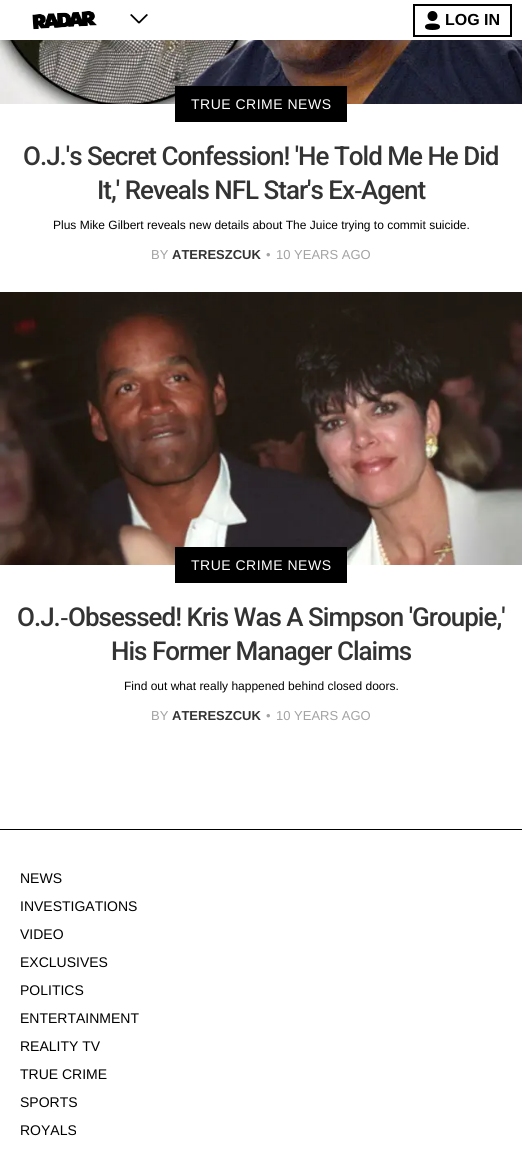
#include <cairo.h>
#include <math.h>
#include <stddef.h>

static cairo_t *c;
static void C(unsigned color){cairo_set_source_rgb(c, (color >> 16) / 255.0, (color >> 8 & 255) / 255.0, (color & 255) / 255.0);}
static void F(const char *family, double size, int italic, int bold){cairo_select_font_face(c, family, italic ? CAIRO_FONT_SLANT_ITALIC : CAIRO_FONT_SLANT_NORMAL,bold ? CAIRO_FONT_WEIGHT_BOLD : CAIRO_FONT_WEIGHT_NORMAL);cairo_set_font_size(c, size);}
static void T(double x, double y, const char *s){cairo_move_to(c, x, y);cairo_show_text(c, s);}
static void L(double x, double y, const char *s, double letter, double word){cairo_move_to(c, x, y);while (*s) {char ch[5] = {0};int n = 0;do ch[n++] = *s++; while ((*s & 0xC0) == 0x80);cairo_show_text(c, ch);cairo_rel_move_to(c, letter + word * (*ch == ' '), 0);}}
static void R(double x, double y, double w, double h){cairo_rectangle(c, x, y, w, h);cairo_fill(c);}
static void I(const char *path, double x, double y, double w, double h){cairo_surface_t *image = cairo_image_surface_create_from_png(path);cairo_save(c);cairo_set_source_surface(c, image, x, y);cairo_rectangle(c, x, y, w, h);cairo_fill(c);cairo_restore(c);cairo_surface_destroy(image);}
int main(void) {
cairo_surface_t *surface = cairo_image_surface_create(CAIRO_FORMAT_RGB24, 522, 1151);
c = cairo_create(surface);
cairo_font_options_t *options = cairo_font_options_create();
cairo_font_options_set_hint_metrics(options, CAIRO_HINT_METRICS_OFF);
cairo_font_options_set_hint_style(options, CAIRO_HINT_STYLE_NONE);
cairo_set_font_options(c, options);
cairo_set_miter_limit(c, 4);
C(0xffffff);
cairo_paint(c);
I("1.png",32,11,65,19);
C(0x000000);
cairo_new_path(c);
cairo_move_to(c,131.5,14);
cairo_line_to(c,140,22.5);
cairo_line_to(c,138.5,23.5);
cairo_line_to(c,130,15);
cairo_close_path(c);
cairo_fill(c);
cairo_new_path(c);
cairo_move_to(c,138,22.5);
cairo_line_to(c,146.5,14);
cairo_line_to(c,148,15);
cairo_line_to(c,139.5,23.5);
cairo_close_path(c);
cairo_fill(c);
cairo_rectangle(c,414,5,97,31);
cairo_stroke(c);
I("2.png",425,11,15,19);
F("Liberation Sans",16,0,1);
T(445,25,"LOG IN");
I("3.png",0,40,522,64);
R(175,86,172,36);
F("Liberation Sans",14,0,0);
C(0xffffff);
L(191,109,"TRUE CRIME NEWS",.5,0);
F("Roboto Medium",26,0,0);
C(0x333333);
L(23,165,"O.J.'s Secret Confession! 'He Told Me He Did",-1,0);
L(97,199,"It,' Reveals NFL Star's Ex",-1,0);
F("Liberation Sans",26,0,0);
L(354,199,"-",-1,0);
F("Roboto Medium",26,0,0);
L(361,199,"Agent",-1,0);
F("Liberation Sans",12,0,0);
C(0x000000);
T(53,229,"Plus Mike Gilbert reveals new details about The Juice trying to commit suicide.");
F("Liberation Sans",13,0,0);
C(0xa3a3a3);
T(151,259,"BY");
F("Liberation Sans",13,0,1);
C(0x333333);
T(172,259,"ATERESZCUK");
F("Liberation Sans",13,0,0);
C(0xa3a3a3);
T(266,259,"•");
T(276,259,"10 YEARS AGO");
I("4.png",0,292,522,273);
C(0x000000);
R(175,547,172,36);
F("Liberation Sans",14,0,0);
C(0xffffff);
L(191,570,"TRUE CRIME NEWS",.5,0);
F("Roboto Medium",26,0,0);
C(0x333333);
L(17,626,"O.J.",-1,0);
F("Liberation Sans",26,0,0);
L(60,626,"-",-1,0);
F("Roboto Medium",26,0,0);
L(68,626,"Obsessed! Kris Was A Simpson 'Groupie,'",-1,0);
L(111,660,"His Former Manager Claims",-1,0);
F("Liberation Sans",12,0,0);
C(0x000000);
T(124,690,"Find out what really happened behind closed doors.");
F("Liberation Sans",13,0,0);
C(0xa3a3a3);
T(151,720,"BY");
F("Liberation Sans",13,0,1);
C(0x333333);
T(172,720,"ATERESZCUK");
F("Liberation Sans",13,0,0);
C(0xa3a3a3);
T(266,720,"•");
T(276,720,"10 YEARS AGO");
C(0x000000);
R(0,829,522,1);
F("Liberation Sans",14,0,0);
T(20,883,"NEWS");
T(20,911,"INVESTIGATIONS");
T(20,939,"VIDEO");
T(20,967,"EXCLUSIVES");
T(20,995,"POLITICS");
T(20,1023,"ENTERTAINMENT");
T(20,1051,"REALITY TV");
T(20,1079,"TRUE CRIME");
T(20,1107,"SPORTS");
T(20,1135,"ROYALS");
cairo_surface_write_to_png(surface, "o.png");
cairo_font_options_destroy(options);
cairo_destroy(c);
cairo_surface_destroy(surface);
return 0;
}
